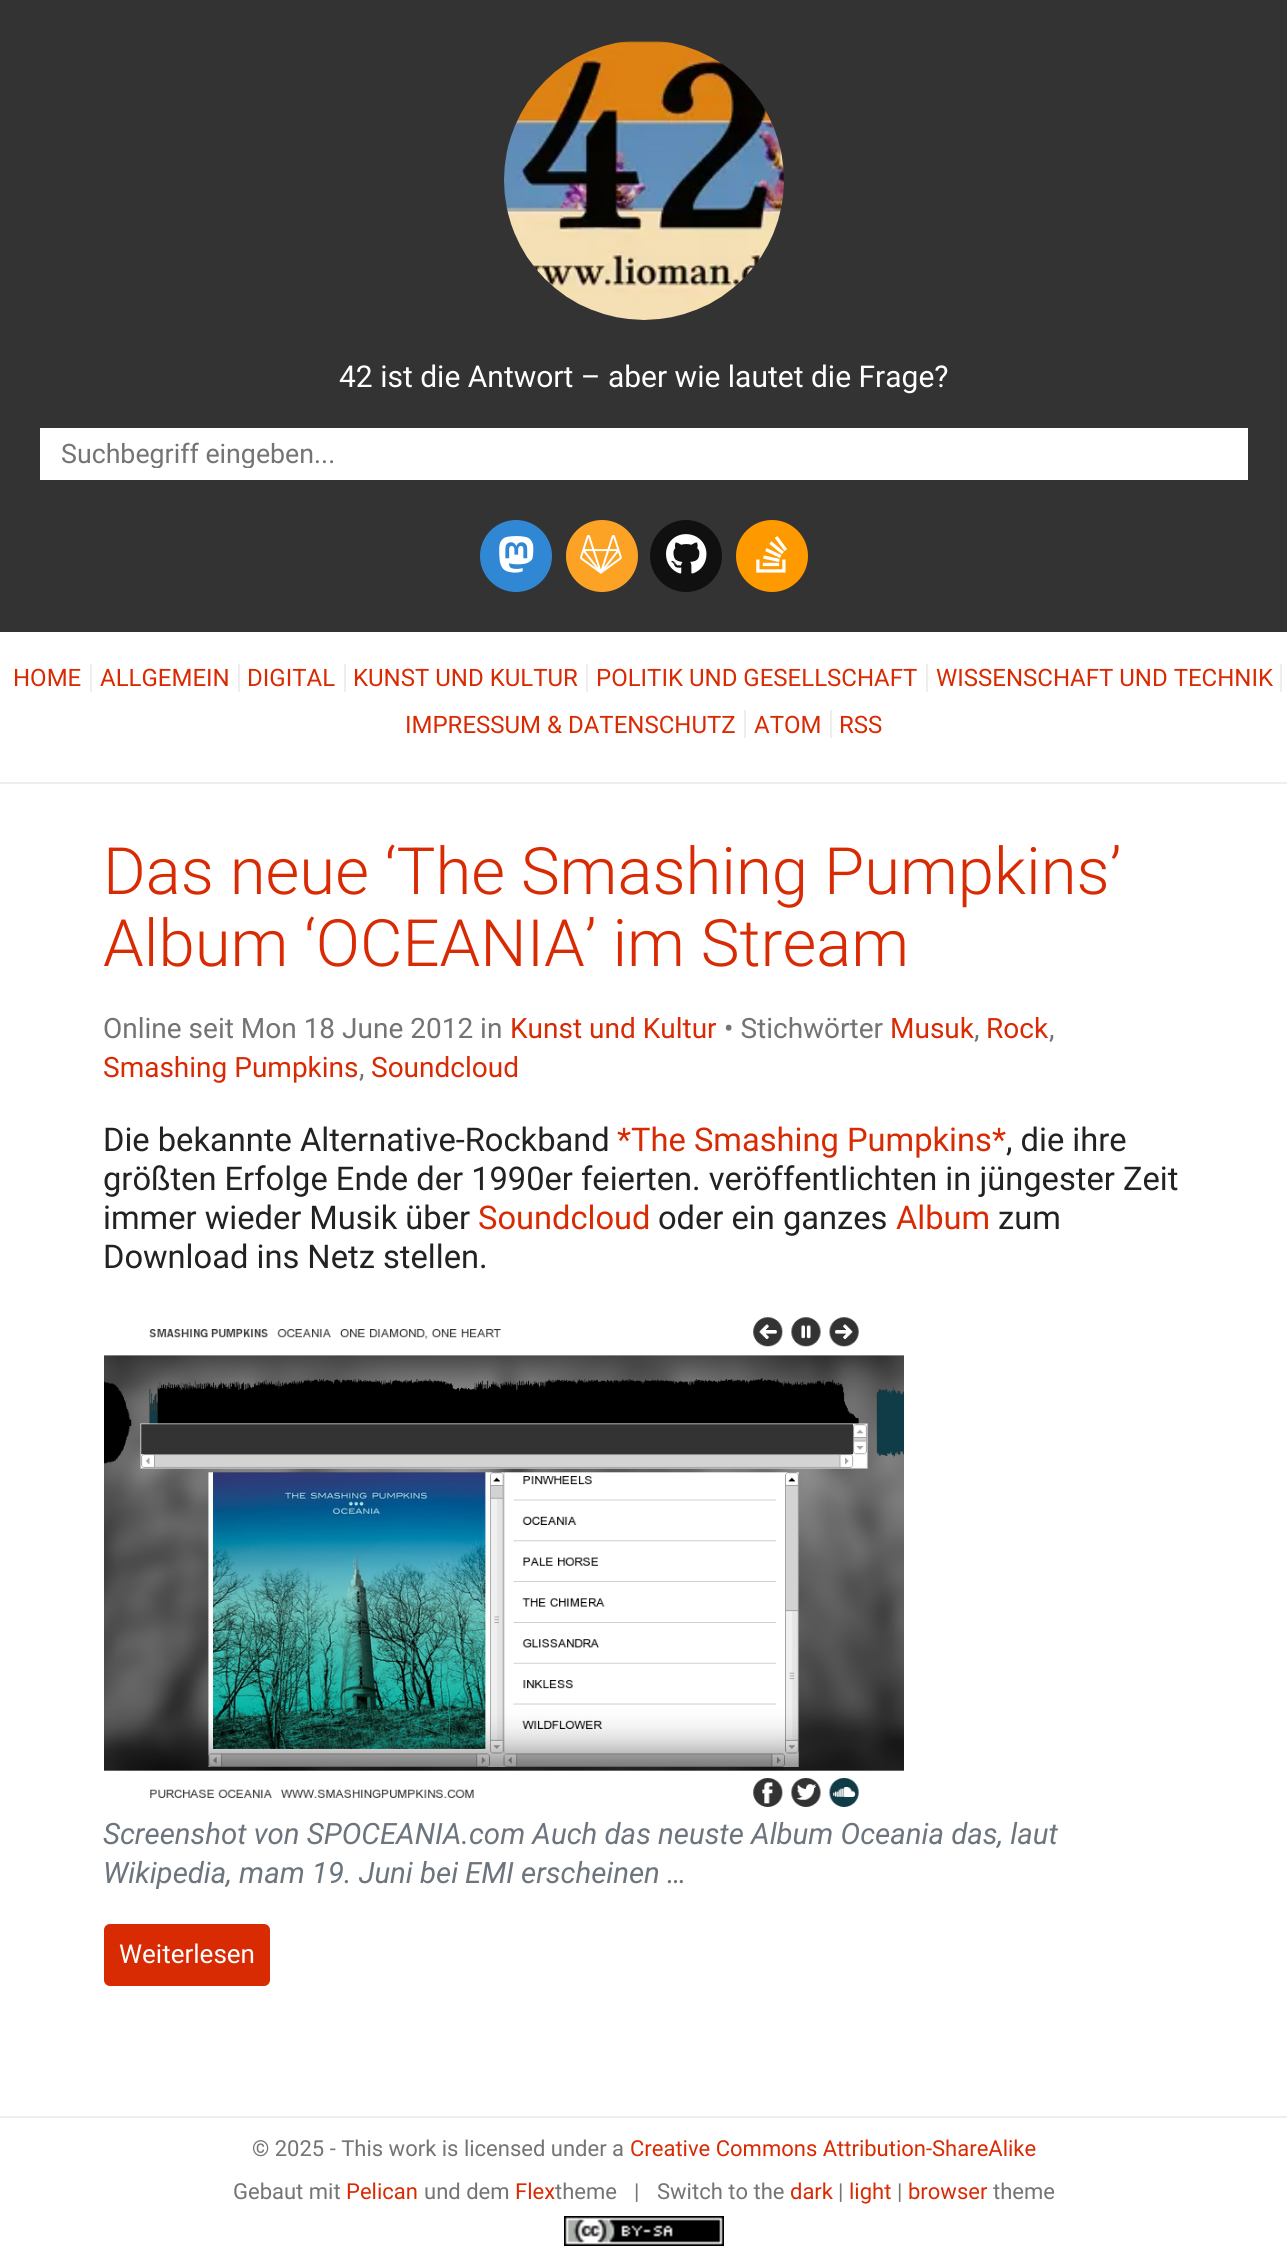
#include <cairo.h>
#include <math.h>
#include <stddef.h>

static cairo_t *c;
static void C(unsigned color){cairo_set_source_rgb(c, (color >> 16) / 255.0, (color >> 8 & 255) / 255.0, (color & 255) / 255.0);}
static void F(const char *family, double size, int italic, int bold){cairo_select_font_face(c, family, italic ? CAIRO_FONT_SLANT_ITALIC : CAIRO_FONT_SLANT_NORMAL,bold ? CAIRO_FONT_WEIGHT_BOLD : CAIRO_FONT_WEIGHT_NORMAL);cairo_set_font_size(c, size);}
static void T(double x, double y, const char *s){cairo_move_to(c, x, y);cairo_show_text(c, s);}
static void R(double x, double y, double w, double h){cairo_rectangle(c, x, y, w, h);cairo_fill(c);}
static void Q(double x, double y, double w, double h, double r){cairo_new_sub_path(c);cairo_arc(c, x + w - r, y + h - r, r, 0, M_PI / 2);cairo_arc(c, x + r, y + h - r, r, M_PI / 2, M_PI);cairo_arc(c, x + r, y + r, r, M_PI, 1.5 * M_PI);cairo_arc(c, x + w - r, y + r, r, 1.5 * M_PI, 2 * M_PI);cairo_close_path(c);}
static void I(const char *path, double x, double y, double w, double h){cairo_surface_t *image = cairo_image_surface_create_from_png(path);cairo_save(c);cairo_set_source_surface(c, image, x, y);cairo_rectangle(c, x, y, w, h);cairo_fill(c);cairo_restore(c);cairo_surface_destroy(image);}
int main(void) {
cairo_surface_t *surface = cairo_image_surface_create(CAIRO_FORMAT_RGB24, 1287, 2258);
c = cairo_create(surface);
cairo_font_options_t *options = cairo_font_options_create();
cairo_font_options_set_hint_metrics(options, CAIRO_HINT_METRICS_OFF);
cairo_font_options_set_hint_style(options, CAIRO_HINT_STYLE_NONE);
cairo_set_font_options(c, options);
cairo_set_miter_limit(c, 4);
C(0xffffff);
cairo_paint(c);
C(0x333333);
R(0,0,1287,632);
I("1.png",504,41,280,279);
F("Roboto",30,0,0);
C(0xffffff);
T(339,387,"42 ist die Antwort – aber wie lautet die Frage?");
R(40,428,1208,52);
cairo_save(c);
cairo_rectangle(c,62,438,1164,30);
cairo_clip(c);
F("Roboto",26.75,0,0);
C(0x757474);
T(61,463,"Suchbegriff eingeben...");
cairo_restore(c);
C(0x3088d4);
cairo_new_path(c);
cairo_arc(c,516,556,36,0,2 * M_PI);
cairo_fill(c);
I("2.png",499,536,35,37);
C(0xfca326);
cairo_arc(c,602,556,36,0,2 * M_PI);
cairo_fill(c);
I("3.png",580,535,42,39);
C(0x111010);
cairo_arc(c,686,556,36,0,2 * M_PI);
cairo_fill(c);
I("4.png",666,534,41,40);
C(0xff9900);
cairo_arc(c,772,556,36,0,2 * M_PI);
cairo_fill(c);
I("5.png",756,536,31,37);
C(0xeeeeee);
R(0,782,1287,2);
F("Roboto",24,0,0);
C(0xd92b03);
T(13,686,"HOME");
C(0xeeeeee);
R(90,664,2,28);
C(0xd92b03);
T(100,686,"ALLGEMEIN");
C(0xeeeeee);
R(238,664,2,28);
C(0xd92b03);
T(247,686,"DIGITAL");
C(0xeeeeee);
R(344,664,2,28);
C(0xd92b03);
T(353,686,"KUNST UND KULTUR");
C(0xeeeeee);
R(586,664,2,28);
C(0xd92b03);
T(596,686,"POLITIK UND GESELLSCHAFT");
C(0xeeeeee);
R(926,664,2,28);
C(0xd92b03);
T(936,686,"WISSENSCHAFT UND TECHNIK");
C(0xeeeeee);
R(1280,664,2,28);
C(0xd92b03);
T(405,733,"IMPRESSUM & DATENSCHUTZ");
C(0xeeeeee);
R(744,710,2,28);
C(0xd92b03);
T(754,733,"ATOM");
C(0xeeeeee);
R(830,710,2,28);
C(0xd92b03);
T(839,733,"RSS");
F("Roboto Light",65.25,0,0);
T(103,894,"Das neue ‘The Smashing Pumpkins’");
T(103,966,"Album ‘OCEANIA’ im Stream");
F("Roboto",28,0,0);
C(0x757474);
T(103,1038,"Online seit Mon 18 June 2012 in");
C(0xd92b03);
T(510,1038,"Kunst und Kultur");
C(0x757474);
T(724,1038,"• Stichwörter");
C(0xd92b03);
T(890,1038,"Musuk");
C(0x757474);
T(974,1038,",");
C(0xd92b03);
T(986,1038,"Rock");
C(0x757474);
T(1049,1038,",");
C(0xd92b03);
T(103,1077,"Smashing Pumpkins");
C(0x757474);
T(359,1077,",");
C(0xd92b03);
T(371,1077,"Soundcloud");
F("Roboto",32.65,0,0);
C(0x242121);
T(103,1151,"Die bekannte Alternative-Rockband");
C(0xd92b03);
T(617,1151,"*The Smashing Pumpkins*");
C(0x242121);
T(1006,1151,", die ihre");
T(103,1190,"größten Erfolge Ende der 1990er feierten. veröffentlichten in jüngester Zeit");
T(103,1229,"immer wieder Musik über");
C(0xd92b03);
T(478,1229,"Soundcloud");
C(0x242121);
T(658,1229,"oder ein ganzes");
C(0xd92b03);
T(896,1229,"Album");
C(0x242121);
T(998,1229,"zum");
T(103,1268,"Download ins Netz stellen.");
I("6.png",104,1317,800,491);
F("Roboto",29.4,1,0);
C(0x6c757d);
T(103,1844,"Screenshot von SPOCEANIA.com Auch das neuste Album Oceania das, laut");
T(103,1883,"Wikipedia, mam 19. Juni bei");
T(465,1883,"EMI erscheinen …");
C(0xd92b03);
Q(104,1924,166,62,6);
cairo_fill(c);
F("Roboto",26,0,0);
C(0xffffff);
T(119,1963,"Weiterlesen");
C(0xeeeeee);
R(0,2116,1287,2);
F("Roboto",22,0,0);
C(0x757474);
T(252,2156,"© 2025 - This work is licensed under a");
C(0xd92b03);
T(630,2156,"Creative Commons Attribution-ShareAlike");
C(0x757474);
T(233,2199,"Gebaut mit");
C(0xd92b03);
T(346,2199,"Pelican");
C(0x757474);
T(424,2199,"und dem");
C(0xd92b03);
T(515,2199,"Flex");
C(0x757474);
T(555,2199,"theme");
T(634,2199,"|");
T(657,2199,"Switch to the");
C(0xd92b03);
T(790,2199,"dark");
C(0x757474);
T(838,2199,"|");
C(0xd92b03);
T(849,2199,"light");
C(0x757474);
T(897,2199,"|");
C(0xd92b03);
T(908,2199,"browser");
C(0x757474);
T(993,2199,"theme");
I("7.png",564,2216,160,30);
cairo_surface_write_to_png(surface, "o.png");
cairo_font_options_destroy(options);
cairo_destroy(c);
cairo_surface_destroy(surface);
return 0;
}
